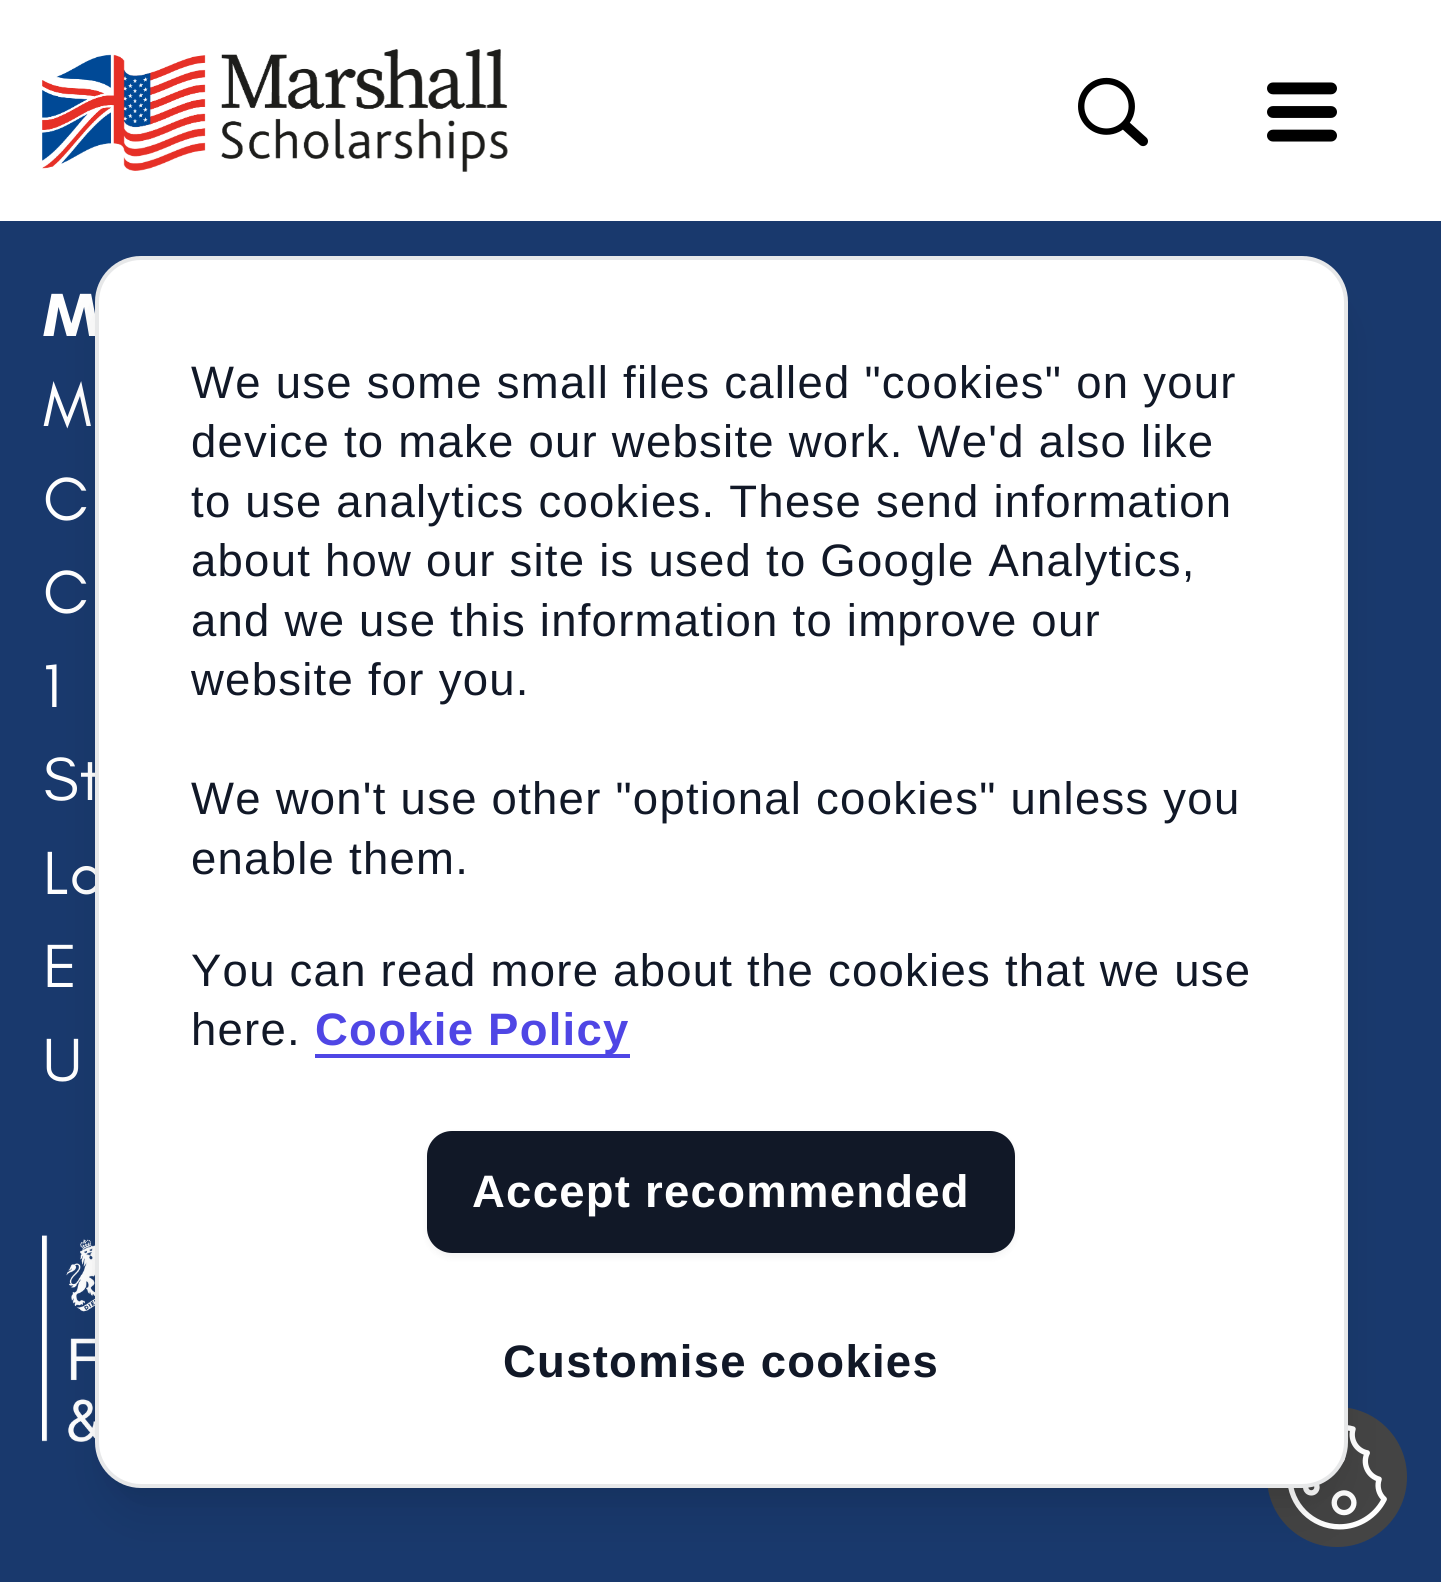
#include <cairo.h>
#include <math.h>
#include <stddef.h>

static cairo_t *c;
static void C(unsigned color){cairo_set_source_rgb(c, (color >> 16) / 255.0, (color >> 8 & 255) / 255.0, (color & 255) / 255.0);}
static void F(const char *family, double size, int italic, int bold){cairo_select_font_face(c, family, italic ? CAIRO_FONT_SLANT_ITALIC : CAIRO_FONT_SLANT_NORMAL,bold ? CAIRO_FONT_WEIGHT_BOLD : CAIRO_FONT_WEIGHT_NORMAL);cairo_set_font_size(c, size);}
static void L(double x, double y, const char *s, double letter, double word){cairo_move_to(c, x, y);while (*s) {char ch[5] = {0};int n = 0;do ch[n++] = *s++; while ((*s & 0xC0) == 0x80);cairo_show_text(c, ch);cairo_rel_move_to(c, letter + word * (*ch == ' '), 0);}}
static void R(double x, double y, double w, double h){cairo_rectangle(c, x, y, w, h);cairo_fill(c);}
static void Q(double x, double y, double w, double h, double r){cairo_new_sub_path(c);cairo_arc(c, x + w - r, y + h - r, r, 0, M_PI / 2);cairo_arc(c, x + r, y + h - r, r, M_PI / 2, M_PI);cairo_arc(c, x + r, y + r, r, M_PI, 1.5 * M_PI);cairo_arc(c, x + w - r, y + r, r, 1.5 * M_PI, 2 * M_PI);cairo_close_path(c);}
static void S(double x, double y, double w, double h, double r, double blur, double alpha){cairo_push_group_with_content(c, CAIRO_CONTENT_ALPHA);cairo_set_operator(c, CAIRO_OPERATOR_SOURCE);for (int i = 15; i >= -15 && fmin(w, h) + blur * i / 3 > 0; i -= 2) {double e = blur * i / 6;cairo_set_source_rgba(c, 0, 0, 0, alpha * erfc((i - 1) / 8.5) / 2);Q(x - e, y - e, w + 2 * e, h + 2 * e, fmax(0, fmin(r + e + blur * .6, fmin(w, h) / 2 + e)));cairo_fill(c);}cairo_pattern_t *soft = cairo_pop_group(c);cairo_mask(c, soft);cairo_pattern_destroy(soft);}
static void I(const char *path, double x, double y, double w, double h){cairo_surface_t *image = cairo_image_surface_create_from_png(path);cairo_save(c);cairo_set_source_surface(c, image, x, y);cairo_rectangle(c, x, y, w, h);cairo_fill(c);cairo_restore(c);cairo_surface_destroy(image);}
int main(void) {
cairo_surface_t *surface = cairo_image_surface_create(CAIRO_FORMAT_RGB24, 1441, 1582);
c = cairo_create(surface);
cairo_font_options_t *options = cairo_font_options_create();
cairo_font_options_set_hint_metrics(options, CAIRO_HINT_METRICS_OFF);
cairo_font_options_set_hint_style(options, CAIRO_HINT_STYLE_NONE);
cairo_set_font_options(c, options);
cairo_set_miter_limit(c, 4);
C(0x19396d);
cairo_paint(c);
C(0xffffff);
R(0,0,1441,221);
I("1.png",42,49,466,123);
I("2.png",1078,77,70,70);
I("3.png",1267,82,70,60);
F("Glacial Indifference",62,0,1);
L(43,336,"M",1.25,0);
F("Glacial Indifference",62,0,0);
L(43,426,"M",1.25,0);
L(43,520,"C",1.25,0);
L(43,613,"C",1.25,0);
L(43,707,"1",1.25,0);
L(43,800,"St",1.25,0);
L(43,894,"Lo",1.25,0);
L(43,987,"E",1.25,0);
L(43,1081,"U",1.25,0);
I("4.png",42,1235,53,207);
C(0x444444);
cairo_arc(c,1337,1477,70,0,2 * M_PI);
cairo_fill(c);
I("5.png",1288,1425,99,105);
C(0x000000);
S(102,277,1239,1218,39,10.5,.05);
S(105,301,1232,1211,35,26,.1);
C(0xffffff);
Q(95,256,1253,1232,46);
cairo_fill(c);
Q(97,258,1249,1228,44);
cairo_set_source_rgba(c,0.067,0.094,0.153,0.1);
cairo_set_line_width(c,4);
cairo_stroke(c);
F("Liberation Sans",45.5,0,0);
C(0x111827);
L(191,398,"We use some small files called \"cookies\" on your",1.25,0);
L(191,457,"device to make our website work. We'd also like",1.25,0);
L(191,517,"to use analytics cookies. These send information",1.25,0);
L(191,576,"about how our site is used to Google Analytics,",1.25,0);
L(191,636,"and we use this information to improve our",1.25,0);
L(191,695,"website for you.",1.25,0);
L(191,814,"We won't use other \"optional cookies\" unless you",1.25,0);
L(191,874,"enable them.",1.25,0);
L(191,986,"You can read more about the cookies that we use",1.25,0);
L(191,1045,"here.",1.25,0);
C(0x4f46e5);
R(315,1054,315,4);
F("Liberation Sans",45.5,0,1);
L(315,1045,"Cookie Policy",1.25,0);
C(0x000000);
S(427,1134,588,123,25,3.5,.05);
C(0x111827);
Q(427,1131,588,122,25);
cairo_fill(c);
C(0xffffff);
L(472,1207,"Accept recommended",1.25,0);
C(0x111827);
L(503,1377,"Customise cookies",1.25,0);
cairo_surface_write_to_png(surface, "o.png");
cairo_font_options_destroy(options);
cairo_destroy(c);
cairo_surface_destroy(surface);
return 0;
}
